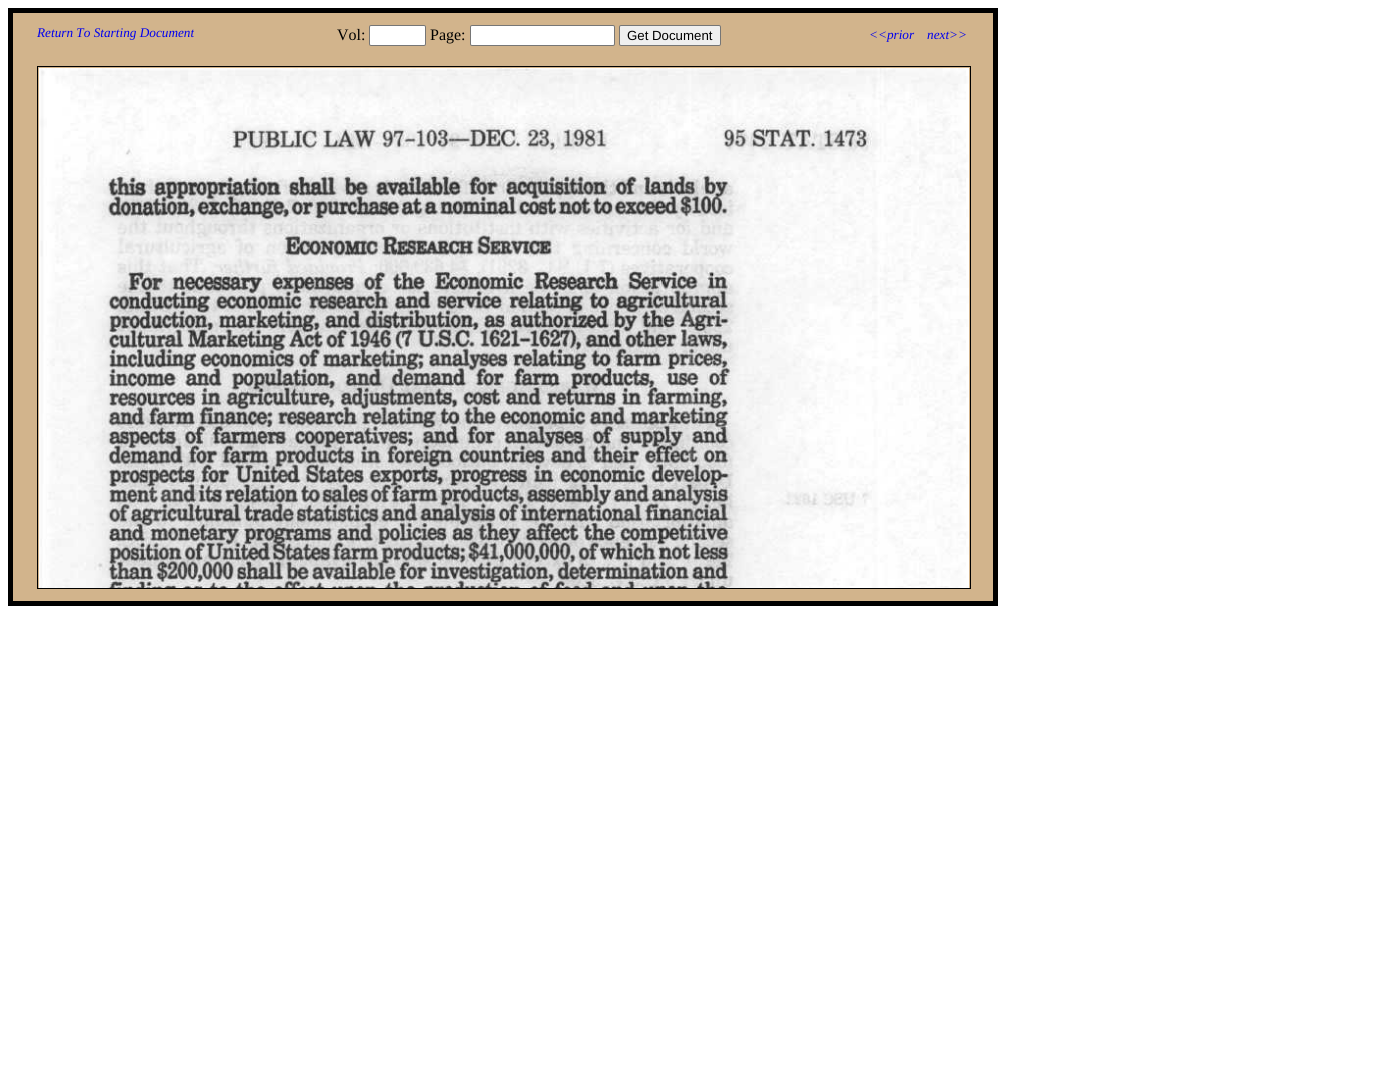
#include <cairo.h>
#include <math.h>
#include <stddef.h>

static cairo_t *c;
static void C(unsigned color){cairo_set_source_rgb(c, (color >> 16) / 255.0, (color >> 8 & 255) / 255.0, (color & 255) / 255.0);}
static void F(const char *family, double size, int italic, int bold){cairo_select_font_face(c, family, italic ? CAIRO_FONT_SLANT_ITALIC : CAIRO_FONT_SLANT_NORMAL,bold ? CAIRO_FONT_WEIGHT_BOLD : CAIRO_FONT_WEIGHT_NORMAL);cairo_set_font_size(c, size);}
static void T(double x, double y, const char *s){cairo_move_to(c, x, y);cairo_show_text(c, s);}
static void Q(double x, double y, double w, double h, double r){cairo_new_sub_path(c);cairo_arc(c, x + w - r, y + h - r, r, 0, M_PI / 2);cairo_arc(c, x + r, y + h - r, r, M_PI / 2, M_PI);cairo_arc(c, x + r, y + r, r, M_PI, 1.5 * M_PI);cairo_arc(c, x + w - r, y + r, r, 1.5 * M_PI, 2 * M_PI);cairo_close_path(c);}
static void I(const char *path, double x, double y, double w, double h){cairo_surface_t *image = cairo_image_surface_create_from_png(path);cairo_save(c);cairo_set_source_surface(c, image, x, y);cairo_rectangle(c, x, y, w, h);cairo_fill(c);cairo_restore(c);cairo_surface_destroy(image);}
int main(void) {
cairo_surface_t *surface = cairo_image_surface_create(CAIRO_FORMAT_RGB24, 1377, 1082);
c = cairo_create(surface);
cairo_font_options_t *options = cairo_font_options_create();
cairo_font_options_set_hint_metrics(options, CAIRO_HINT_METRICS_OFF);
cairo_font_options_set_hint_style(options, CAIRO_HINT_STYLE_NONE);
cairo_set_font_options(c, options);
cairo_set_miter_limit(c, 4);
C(0xffffff);
cairo_paint(c);
C(0xd2b48c);
cairo_rectangle(c,10.5,10.5,985,593);
cairo_fill_preserve(c);
C(0x000000);
cairo_set_line_width(c,5);
cairo_stroke(c);
F("Liberation Serif",13.25,1,0);
C(0x0000ee);
T(37,37,"Return To Starting Document");
F("Liberation Serif",16,0,0);
C(0x000000);
T(337,40,"Vol:");
C(0xffffff);
Q(369.5,25.5,56,20,1.5);
cairo_fill_preserve(c);
C(0x767676);
cairo_set_line_width(c,1);
cairo_stroke(c);
C(0x000000);
T(430,40,"Page:");
C(0xffffff);
Q(470.5,25.5,144,20,1.5);
cairo_fill_preserve(c);
C(0x767676);
cairo_stroke(c);
C(0xefefef);
Q(619.5,25.5,101,20,1.5);
cairo_fill_preserve(c);
C(0x767676);
cairo_stroke(c);
F("Liberation Sans",13.25,0,0);
C(0x000000);
T(627,40,"Get Document");
F("Liberation Serif",13.25,1,0);
C(0x0000ee);
T(869,39,"<<prior");
T(927,39,"next>>");
cairo_rectangle(c,37.5,66.5,933,522);
C(0x000000);
cairo_stroke(c);
I("1.png",39,68,930,520);
cairo_surface_write_to_png(surface, "o.png");
cairo_font_options_destroy(options);
cairo_destroy(c);
cairo_surface_destroy(surface);
return 0;
}
